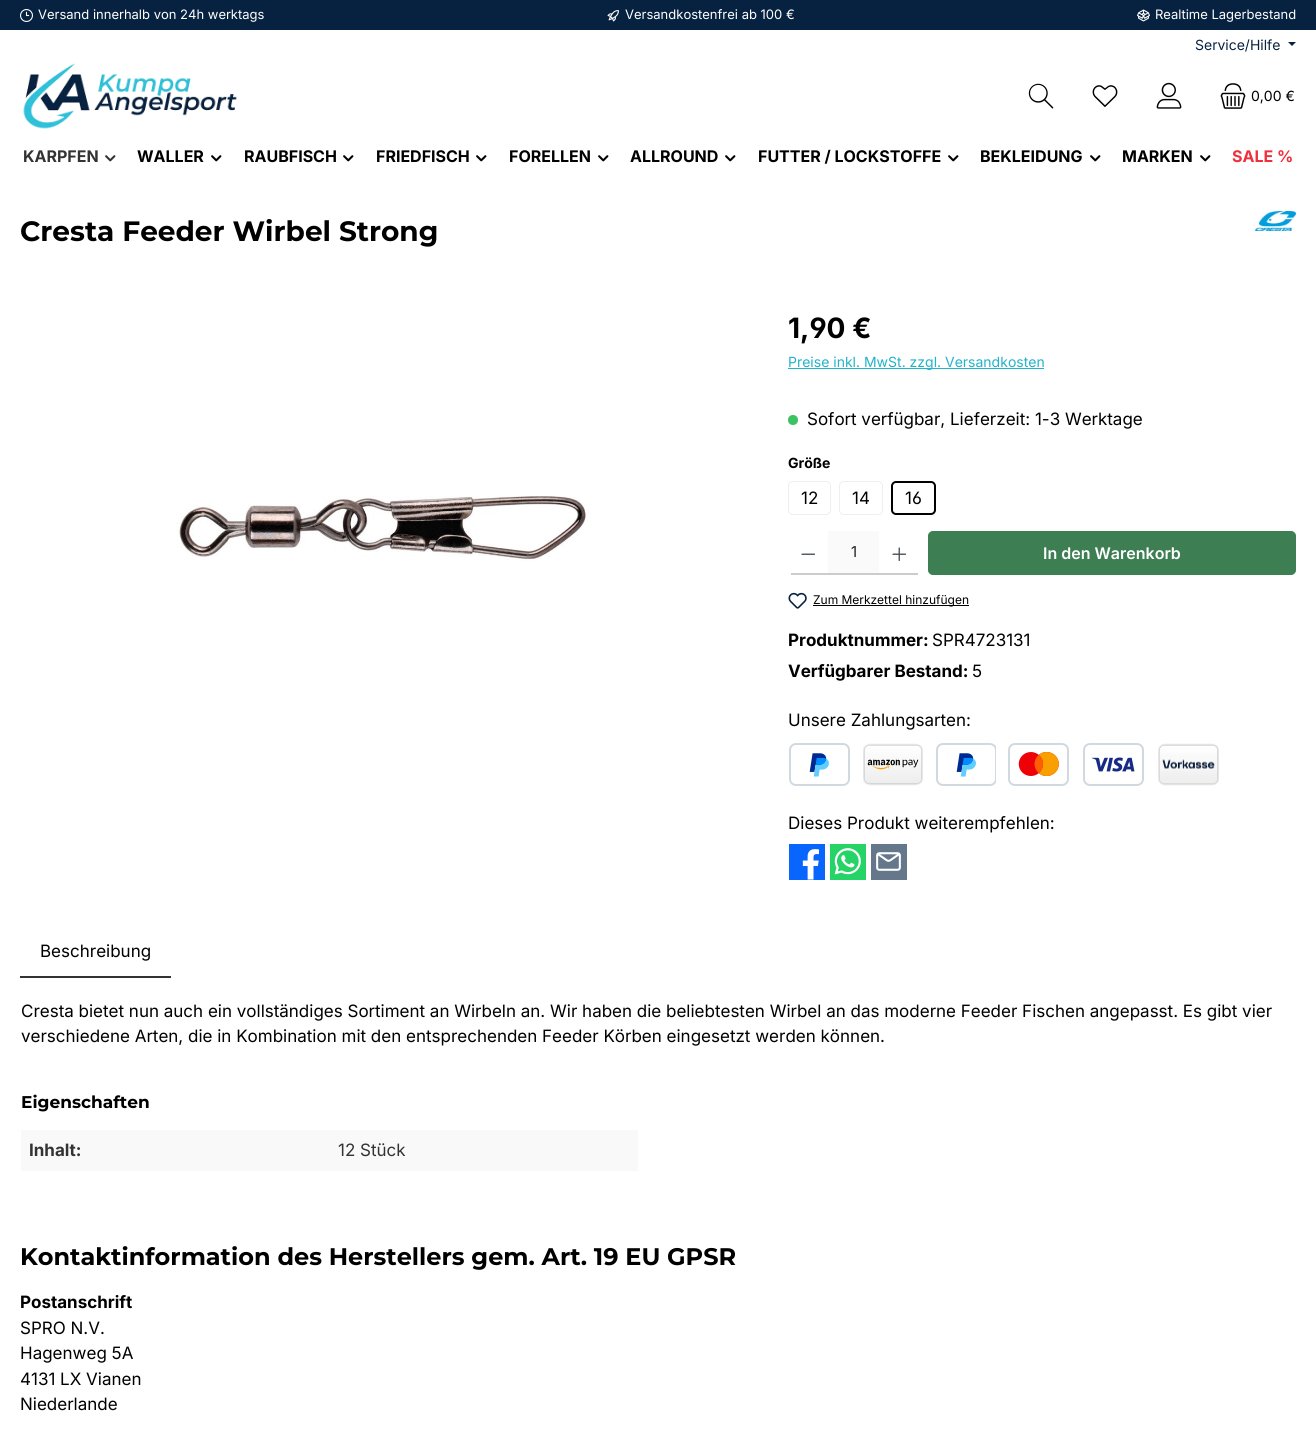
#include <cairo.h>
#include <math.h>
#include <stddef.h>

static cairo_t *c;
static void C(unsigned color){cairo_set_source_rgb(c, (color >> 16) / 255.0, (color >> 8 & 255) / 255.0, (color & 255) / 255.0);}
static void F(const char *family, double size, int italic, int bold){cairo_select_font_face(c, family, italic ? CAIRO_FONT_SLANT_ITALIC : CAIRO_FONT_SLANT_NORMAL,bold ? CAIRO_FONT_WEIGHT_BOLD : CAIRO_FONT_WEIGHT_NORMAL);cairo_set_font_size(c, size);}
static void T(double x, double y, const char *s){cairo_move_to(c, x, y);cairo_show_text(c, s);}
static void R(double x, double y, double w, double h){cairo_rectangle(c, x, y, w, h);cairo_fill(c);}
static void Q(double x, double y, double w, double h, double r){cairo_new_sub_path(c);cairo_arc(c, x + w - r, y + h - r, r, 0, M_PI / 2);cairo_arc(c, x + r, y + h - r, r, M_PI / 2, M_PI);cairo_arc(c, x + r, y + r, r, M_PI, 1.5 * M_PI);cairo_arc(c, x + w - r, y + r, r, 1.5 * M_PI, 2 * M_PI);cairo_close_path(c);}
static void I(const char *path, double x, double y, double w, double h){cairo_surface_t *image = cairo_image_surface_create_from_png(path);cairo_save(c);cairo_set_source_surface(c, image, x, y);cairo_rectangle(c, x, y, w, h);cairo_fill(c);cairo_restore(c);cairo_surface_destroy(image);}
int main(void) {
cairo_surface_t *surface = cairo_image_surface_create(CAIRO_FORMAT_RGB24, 1316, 1447);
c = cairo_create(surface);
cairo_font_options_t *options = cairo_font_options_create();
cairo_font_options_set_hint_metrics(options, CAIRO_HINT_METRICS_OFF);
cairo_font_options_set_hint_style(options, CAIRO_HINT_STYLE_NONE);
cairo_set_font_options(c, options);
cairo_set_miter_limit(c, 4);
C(0xffffff);
cairo_paint(c);
C(0x072240);
R(0,0,1316,30);
I("1.png",20,9,13,13);
F("Inter",13,0,0);
C(0xffffff);
T(38,19,"Versand innerhalb von 24h werktags");
I("2.png",607,10,12,12);
T(625,19,"Versandkostenfrei ab 100 €");
I("3.png",1137,9,13,13);
T(1155,19,"Realtime Lagerbestand");
F("Inter",14,0,0);
C(0x072240);
T(1195,50,"Service/Hilfe");
cairo_new_path(c);
cairo_move_to(c,1288,42);
cairo_line_to(c,1296,42);
cairo_line_to(c,1292,46);
cairo_close_path(c);
cairo_fill(c);
I("4.png",23,63,214,66);
I("5.png",1028,83,26,26);
I("6.png",1092,85,26,22);
I("7.png",1156,82,26,27);
I("8.png",1220,83,26,26);
C(0x000000);
T(1251,101,"0,00 €");
F("Inter",16,0,1);
C(0x333333);
T(23,162,"KARPFEN");
I("9.png",105,155,11,7);
C(0x000000);
T(137,162,"WALLER");
I("10.png",211,155,11,7);
T(244,162,"RAUBFISCH");
I("10.png",343,155,11,7);
T(376,162,"FRIEDFISCH");
I("10.png",476,155,11,7);
T(509,162,"FORELLEN");
I("10.png",598,155,11,7);
T(630,162,"ALLROUND");
I("10.png",725,155,11,7);
T(758,162,"FUTTER / LOCKSTOFFE");
I("10.png",948,155,11,7);
T(980,162,"BEKLEIDUNG");
I("10.png",1090,155,11,7);
T(1122,162,"MARKEN");
I("10.png",1200,155,11,7);
C(0xef2f3c);
T(1232,162,"SALE %");
F("Montserrat Thin",28,0,0);
C(0x000000);
T(20,241,"Cresta Feeder Wirbel Strong");
I("11.png",1255,211,41,20);
I("12.png",177,496,412,65);
F("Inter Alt",28,0,1);
T(788,338,"1,90 €");
C(0x22b3c9);
R(788,368,256,1);
F("Inter",14,0,0);
T(788,367,"Preise inkl. MwSt. zzgl. Versandkosten");
C(0x3cc261);
cairo_new_path(c);
cairo_arc(c,793,420,5,0,2 * M_PI);
cairo_fill(c);
F("Inter",17,0,0);
C(0x000000);
T(807,425,"Sofort verfügbar, Lieferzeit: 1-3 Werktage");
F("Inter",14,0,1);
T(788,468,"Größe");
Q(788.5,481.5,42,33,4.5);
C(0xeeeeee);
cairo_set_line_width(c,1);
cairo_stroke(c);
F("Inter",17,0,0);
C(0x000000);
T(801,504,"12");
Q(839.5,481.5,43,33,4.5);
C(0xeeeeee);
cairo_stroke(c);
C(0x000000);
T(852,504,"14");
Q(892,482,43,32,4);
cairo_set_line_width(c,2);
cairo_stroke(c);
F("Inter Alt",17,0,0);
T(905,504,"16");
C(0xcccccc);
R(827,573,53,2);
C(0xffffff);
cairo_new_path(c);
cairo_move_to(c,793,531);
cairo_line_to(c,828,531);
cairo_line_to(c,828,575);
cairo_line_to(c,793,575);
cairo_curve_to(c,790,575,788,573,788,570);
cairo_line_to(c,788,536);
cairo_curve_to(c,788,533,790,531,793,531);
cairo_close_path(c);
cairo_fill(c);
C(0xcccccc);
R(791,573,37,2);
I("13.png",801,553,15,2);
C(0xfafafa);
R(828,531,51,42);
F("Inter",15,0,0);
C(0x222222);
T(851,557,"1");
C(0xffffff);
cairo_new_path(c);
cairo_move_to(c,879,531);
cairo_line_to(c,915,531);
cairo_curve_to(c,918,531,920,533,920,536);
cairo_line_to(c,920,570);
cairo_curve_to(c,920,573,918,575,915,575);
cairo_line_to(c,879,575);
cairo_close_path(c);
cairo_fill(c);
C(0xcccccc);
R(879,573,39,2);
I("14.png",892,547,15,15);
C(0x3d7f53);
Q(928.5,531.5,367,43,4.5);
cairo_fill_preserve(c);
cairo_set_line_width(c,1);
cairo_stroke(c);
F("Inter SemiBold",16,0,0);
C(0xffffff);
T(1043,559,"In den Warenkorb");
I("15.png",788,592,19,17);
C(0x000000);
R(813,605,156,1);
F("Inter",12,0,0);
T(813,604,"Zum Merkzettel hinzufügen");
F("Inter",17,0,1);
T(788,646,"Produktnummer:");
F("Inter",17,0,0);
T(932,646,"SPR4723131");
F("Inter",17,0,1);
T(788,677,"Verfügbarer Bestand:");
F("Inter",17,0,0);
T(972,677,"5");
T(788,726,"Unsere Zahlungsarten:");
I("16.png",789,743,61,43);
I("17.png",863,743,60,43);
I("18.png",936,743,60,43);
I("19.png",1008,743,136,43);
I("20.png",1158,743,61,43);
T(788,829,"Dieses Produkt weiterempfehlen:");
I("21.png",789,844,36,36);
I("22.png",830,844,36,36);
I("23.png",871,844,36,36);
C(0x333333);
R(20,976,151,2);
C(0x000000);
T(40,957,"Beschreibung");
T(21,1017,"Cresta bietet nun auch ein vollständiges Sortiment an Wirbeln an. Wir haben die beliebtesten Wirbel an das moderne Feeder Fischen angepasst. Es gibt vier");
T(21,1042,"verschiedene Arten, die in Kombination mit den entsprechenden Feeder Körben eingesetzt werden können.");
F("Montserrat Thin",17,0,0);
T(21,1108,"Eigenschaften");
C(0xf9f9f9);
R(21,1130,617,41);
F("Inter",17,0,1);
C(0x333333);
T(29,1156,"Inhalt:");
F("Inter",17,0,0);
T(338,1156,"12 Stück");
F("Montserrat Thin",24,0,0);
C(0x000000);
T(20,1265,"Kontaktinformation des Herstellers gem. Art. 19 EU GPSR");
F("Inter",17,0,1);
T(20,1308,"Postanschrift");
F("Inter",17,0,0);
T(20,1334,"SPRO N.V.");
T(20,1359,"Hagenweg 5A");
T(20,1385,"4131 LX Vianen");
T(20,1410,"Niederlande");
cairo_surface_write_to_png(surface, "o.png");
cairo_font_options_destroy(options);
cairo_destroy(c);
cairo_surface_destroy(surface);
return 0;
}
